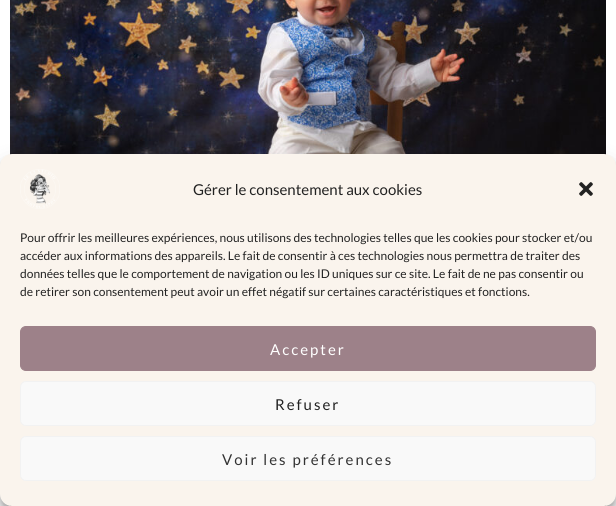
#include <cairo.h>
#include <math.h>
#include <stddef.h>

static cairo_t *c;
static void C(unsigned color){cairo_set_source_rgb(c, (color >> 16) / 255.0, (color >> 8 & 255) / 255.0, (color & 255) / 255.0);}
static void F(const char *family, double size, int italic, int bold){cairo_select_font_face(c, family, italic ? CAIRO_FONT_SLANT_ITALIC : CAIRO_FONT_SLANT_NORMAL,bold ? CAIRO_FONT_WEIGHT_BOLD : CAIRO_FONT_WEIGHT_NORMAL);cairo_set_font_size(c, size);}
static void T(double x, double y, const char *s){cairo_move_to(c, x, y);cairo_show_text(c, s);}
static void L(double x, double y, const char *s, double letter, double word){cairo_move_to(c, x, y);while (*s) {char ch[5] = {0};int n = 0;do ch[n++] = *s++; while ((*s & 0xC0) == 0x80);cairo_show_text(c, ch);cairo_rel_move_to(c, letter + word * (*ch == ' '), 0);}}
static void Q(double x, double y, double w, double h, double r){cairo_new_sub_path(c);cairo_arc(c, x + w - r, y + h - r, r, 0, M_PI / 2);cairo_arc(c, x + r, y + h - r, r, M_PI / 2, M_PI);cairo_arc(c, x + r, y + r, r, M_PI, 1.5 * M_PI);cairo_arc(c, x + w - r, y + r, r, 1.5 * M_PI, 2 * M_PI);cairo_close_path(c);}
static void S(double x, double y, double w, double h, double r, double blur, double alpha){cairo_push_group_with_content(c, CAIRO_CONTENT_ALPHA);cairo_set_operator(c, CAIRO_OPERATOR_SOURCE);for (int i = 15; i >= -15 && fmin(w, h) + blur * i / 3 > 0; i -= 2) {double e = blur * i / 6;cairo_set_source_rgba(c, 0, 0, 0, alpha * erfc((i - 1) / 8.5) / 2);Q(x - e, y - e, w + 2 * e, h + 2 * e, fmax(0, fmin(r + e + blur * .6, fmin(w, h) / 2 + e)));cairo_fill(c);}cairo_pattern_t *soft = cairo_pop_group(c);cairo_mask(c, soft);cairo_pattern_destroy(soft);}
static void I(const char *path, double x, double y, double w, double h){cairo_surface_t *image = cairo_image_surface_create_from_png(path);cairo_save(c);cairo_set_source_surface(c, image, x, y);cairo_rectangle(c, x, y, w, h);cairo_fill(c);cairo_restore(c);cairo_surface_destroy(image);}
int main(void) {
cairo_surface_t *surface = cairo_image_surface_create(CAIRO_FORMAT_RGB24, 616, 506);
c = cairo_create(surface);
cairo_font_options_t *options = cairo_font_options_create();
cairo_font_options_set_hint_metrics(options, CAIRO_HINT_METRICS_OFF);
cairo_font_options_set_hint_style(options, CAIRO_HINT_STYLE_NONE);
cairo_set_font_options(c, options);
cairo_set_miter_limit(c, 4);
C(0xffffff);
cairo_paint(c);
I("1.png",10,0,596,155);
I("2.png",10,505,596,1);
C(0x000000);
S(0,160,616,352,12,3,.23);
S(0,164,616,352,12,10,.19);
C(0xfaf4ed);
Q(0,154,616,352,12);
cairo_fill(c);
I("3.png",20,169,40,40);
F("Lato",15,0,0);
C(0x222222);
T(193,195,"Gérer le consentement aux cookies");
I("4.png",579,182,14,14);
F("Lato",12,0,0);
T(20,242,"Pour offrir les meilleures expériences, nous utilisons des technologies telles que les cookies pour stocker et/ou");
T(20,260,"accéder aux informations des appareils. Le fait de consentir à ces technologies nous permettra de traiter des");
T(20,278,"données telles que le comportement de navigation ou les ID uniques sur ce site. Le fait de ne pas consentir ou");
T(20,296,"de retirer son consentement peut avoir un effet négatif sur certaines caractéristiques et fonctions.");
C(0x9d8189);
Q(20.5,326.5,575,44,5.5);
cairo_fill_preserve(c);
cairo_set_line_width(c,1);
cairo_stroke(c);
F("Lato",15,0,0);
C(0xffffff);
L(270,355,"Accepter",2,0);
C(0xf9f9f9);
Q(20.5,381.5,575,44,5.5);
cairo_fill_preserve(c);
C(0xf2f2f2);
cairo_stroke(c);
C(0x222222);
L(275,410,"Refuser",2,0);
C(0xf9f9f9);
Q(20.5,436.5,575,44,5.5);
cairo_fill_preserve(c);
C(0xf2f2f2);
cairo_stroke(c);
C(0x333333);
L(222,465,"Voir les préférences",2,0);
cairo_surface_write_to_png(surface, "o.png");
cairo_font_options_destroy(options);
cairo_destroy(c);
cairo_surface_destroy(surface);
return 0;
}
